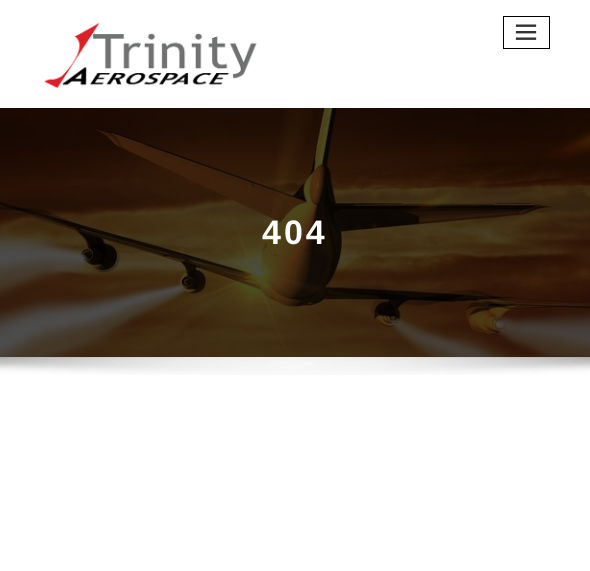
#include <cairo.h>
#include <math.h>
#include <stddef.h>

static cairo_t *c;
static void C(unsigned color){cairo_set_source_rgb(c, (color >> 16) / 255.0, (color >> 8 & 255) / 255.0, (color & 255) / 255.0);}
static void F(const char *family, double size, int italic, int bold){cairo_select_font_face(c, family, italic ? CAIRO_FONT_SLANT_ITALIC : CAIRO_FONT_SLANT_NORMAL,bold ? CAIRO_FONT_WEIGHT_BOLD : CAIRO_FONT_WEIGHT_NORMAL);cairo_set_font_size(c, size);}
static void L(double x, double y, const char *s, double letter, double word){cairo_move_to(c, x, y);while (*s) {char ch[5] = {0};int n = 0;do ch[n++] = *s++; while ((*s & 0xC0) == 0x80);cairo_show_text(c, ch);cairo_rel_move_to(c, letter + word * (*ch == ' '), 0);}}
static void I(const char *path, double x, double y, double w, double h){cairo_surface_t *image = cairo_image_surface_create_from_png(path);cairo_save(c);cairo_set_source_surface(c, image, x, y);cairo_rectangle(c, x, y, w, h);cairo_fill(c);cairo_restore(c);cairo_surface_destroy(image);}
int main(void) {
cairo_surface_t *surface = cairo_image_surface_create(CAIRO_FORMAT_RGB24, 590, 571);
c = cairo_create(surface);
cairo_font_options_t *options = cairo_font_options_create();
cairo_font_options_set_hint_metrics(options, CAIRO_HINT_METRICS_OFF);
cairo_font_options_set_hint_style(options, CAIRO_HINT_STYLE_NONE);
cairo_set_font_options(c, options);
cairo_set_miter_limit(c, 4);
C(0xffffff);
cairo_paint(c);
I("1.png",44,22,213,67);
cairo_rectangle(c,503.5,16.5,46,32);
C(0x000000);
cairo_set_line_width(c,1);
cairo_stroke(c);
I("2.png",515,24,22,16);
I("3.png",0,108,590,249);
F("Liberation Sans",34,0,1);
C(0xffffff);
L(262,244,"404",3,0);
I("4.png",0,357,590,18);
cairo_surface_write_to_png(surface, "o.png");
cairo_font_options_destroy(options);
cairo_destroy(c);
cairo_surface_destroy(surface);
return 0;
}
